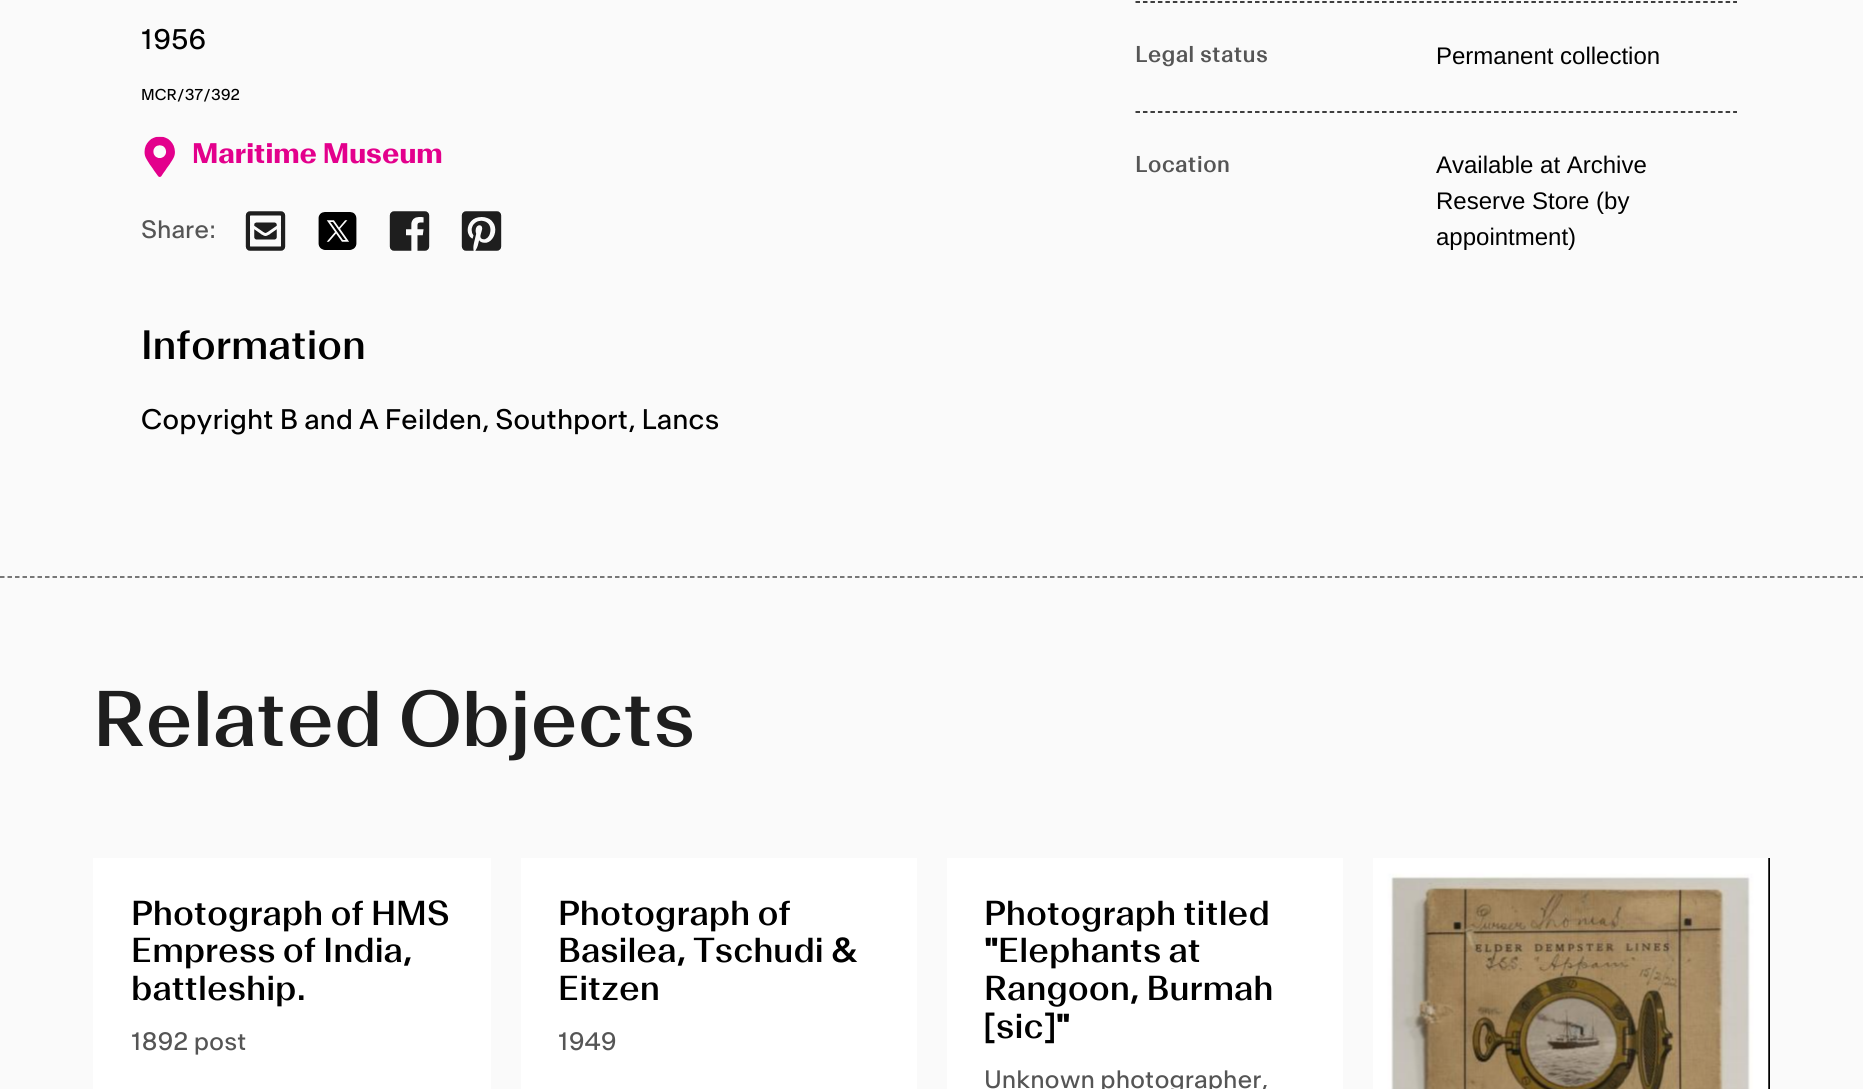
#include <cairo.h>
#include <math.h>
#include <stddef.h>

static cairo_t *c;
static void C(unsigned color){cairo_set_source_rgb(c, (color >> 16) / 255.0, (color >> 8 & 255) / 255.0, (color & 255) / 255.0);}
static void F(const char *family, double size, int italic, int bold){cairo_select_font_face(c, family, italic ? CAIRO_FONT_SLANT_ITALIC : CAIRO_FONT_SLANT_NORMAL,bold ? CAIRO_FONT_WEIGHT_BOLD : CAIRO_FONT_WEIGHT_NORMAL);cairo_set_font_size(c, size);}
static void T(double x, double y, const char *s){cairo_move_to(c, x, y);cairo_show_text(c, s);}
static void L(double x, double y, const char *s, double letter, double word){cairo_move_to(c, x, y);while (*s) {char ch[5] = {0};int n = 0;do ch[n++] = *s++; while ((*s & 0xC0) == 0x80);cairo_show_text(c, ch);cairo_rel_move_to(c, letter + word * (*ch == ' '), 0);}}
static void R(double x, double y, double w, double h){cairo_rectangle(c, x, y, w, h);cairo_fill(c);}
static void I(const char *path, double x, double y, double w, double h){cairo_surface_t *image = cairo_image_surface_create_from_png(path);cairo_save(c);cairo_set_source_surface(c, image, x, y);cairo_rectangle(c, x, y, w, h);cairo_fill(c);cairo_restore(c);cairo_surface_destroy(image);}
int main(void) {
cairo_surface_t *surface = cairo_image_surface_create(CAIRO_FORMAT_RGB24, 1863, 1089);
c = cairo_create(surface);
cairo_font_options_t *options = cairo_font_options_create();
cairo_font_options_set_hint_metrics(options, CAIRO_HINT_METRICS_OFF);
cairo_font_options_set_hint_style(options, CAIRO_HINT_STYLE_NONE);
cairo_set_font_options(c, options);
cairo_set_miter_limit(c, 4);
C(0xfafafa);
cairo_paint(c);
F("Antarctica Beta",27,0,0);
C(0x000000);
T(141,49,"1956");
F("Antarctica Beta",15,0,0);
T(141,100,"MCR/37/392");
I("1.png",144,136,31,41);
F("Antarctica Beta",27,0,1);
C(0xe3008c);
T(192,163,"Maritime Museum");
F("Antarctica Beta",24,0,0);
C(0x555555);
T(141,238,"Share:");
I("2.png",245,211,41,40);
I("3.png",318,212,39,38);
I("4.png",389,211,41,40);
I("5.png",461,211,41,40);
F("Antarctica Beta Medium",39,0,0);
C(0x000000);
T(141,359,"Information");
F("Antarctica Beta",27,0,0);
T(141,429,"Copyright B and A Feilden, Southport, Lancs");
cairo_new_path(c);
cairo_move_to(c,1135.5,2);
cairo_line_to(c,1737,2);
cairo_set_line_width(c,1.5);
cairo_set_dash(c,(double[]){4.5,2.97},2,0);
cairo_stroke(c);
F("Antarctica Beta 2",21,0,1);
C(0x555555);
L(1135,62,"Legal status",.75,0);
F("Liberation Sans",24,0,0);
C(0x000000);
T(1436,64,"Permanent collection");
cairo_new_path(c);
cairo_move_to(c,1135.5,112);
cairo_line_to(c,1737,112);
cairo_stroke(c);
F("Antarctica Beta 2",21,0,1);
C(0x555555);
L(1135,172,"Location",.75,0);
F("Liberation Sans",24,0,0);
C(0x000000);
T(1436,173,"Available at Archive");
T(1436,209,"Reserve Store (by");
T(1436,245,"appointment)");
cairo_new_path(c);
cairo_move_to(c,0,577);
cairo_line_to(c,1863,577);
C(0x4c4c4c);
cairo_set_dash(c,(double[]){4.5,3},2,0);
cairo_stroke(c);
F("Antarctica Beta Medium",75,0,0);
C(0x1e1e1e);
T(93,746,"Related Objects");
C(0xffffff);
R(93,858,398,231);
F("Antarctica Beta Medium",33,0,0);
C(0x000000);
T(131,925,"Photograph of HMS");
T(131,962,"Empress of India,");
T(131,1000,"battleship.");
F("Antarctica Beta",24,0,0);
C(0x555555);
T(131,1050,"1892 post");
C(0xffffff);
R(521,858,396,231);
F("Antarctica Beta Medium",33,0,0);
C(0x000000);
T(558,925,"Photograph of");
T(558,962,"Basilea, Tschudi &");
T(558,1000,"Eitzen");
F("Antarctica Beta",24,0,0);
C(0x555555);
T(558,1050,"1949");
C(0xffffff);
R(947,858,396,231);
F("Antarctica Beta Medium",33,0,0);
C(0x000000);
T(984,925,"Photograph titled");
T(984,962,"\"Elephants at");
T(984,1000,"Rangoon, Burmah");
T(984,1038,"[sic]\"");
F("Antarctica Beta",24,0,0);
C(0x555555);
T(984,1088,"Unknown photographer,");
C(0x000000);
R(1768,858,2,231);
I("6.png",1373,858,396,231);
cairo_surface_write_to_png(surface, "o.png");
cairo_font_options_destroy(options);
cairo_destroy(c);
cairo_surface_destroy(surface);
return 0;
}
